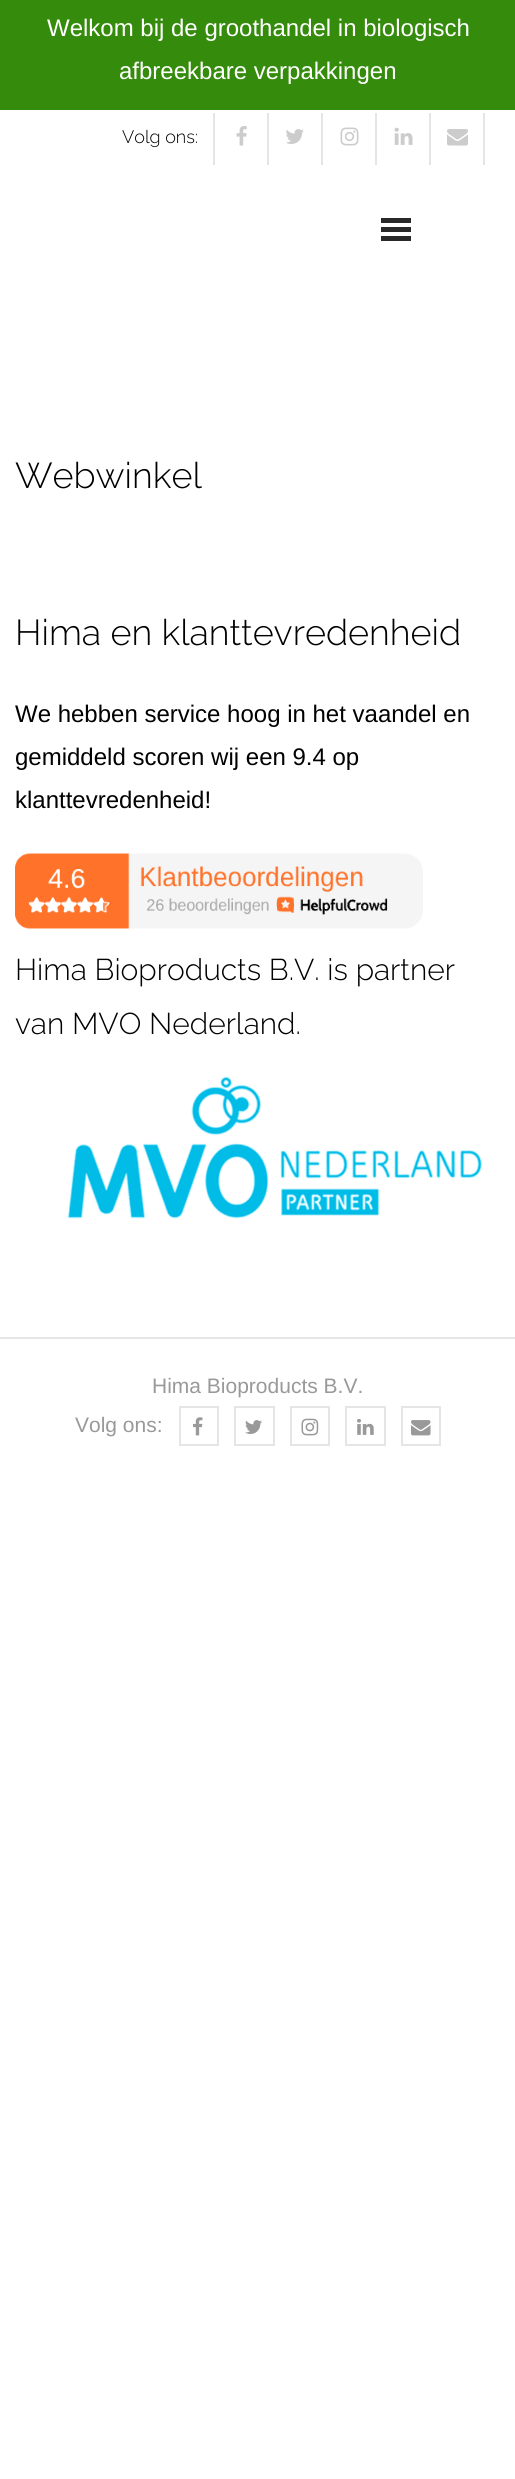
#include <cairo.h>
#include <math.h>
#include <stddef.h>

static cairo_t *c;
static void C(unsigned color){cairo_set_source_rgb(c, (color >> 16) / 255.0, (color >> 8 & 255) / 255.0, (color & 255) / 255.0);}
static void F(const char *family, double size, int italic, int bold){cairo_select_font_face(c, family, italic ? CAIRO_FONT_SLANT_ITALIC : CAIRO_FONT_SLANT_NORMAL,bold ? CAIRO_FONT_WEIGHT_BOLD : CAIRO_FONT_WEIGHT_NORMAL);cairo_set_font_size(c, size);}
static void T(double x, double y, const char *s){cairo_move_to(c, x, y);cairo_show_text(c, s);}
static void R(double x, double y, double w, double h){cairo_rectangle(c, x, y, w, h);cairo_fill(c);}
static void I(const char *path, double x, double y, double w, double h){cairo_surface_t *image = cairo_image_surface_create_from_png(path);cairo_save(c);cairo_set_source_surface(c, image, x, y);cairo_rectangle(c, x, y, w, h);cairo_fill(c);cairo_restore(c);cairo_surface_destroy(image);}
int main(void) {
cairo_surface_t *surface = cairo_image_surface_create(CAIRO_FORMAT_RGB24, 515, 2479);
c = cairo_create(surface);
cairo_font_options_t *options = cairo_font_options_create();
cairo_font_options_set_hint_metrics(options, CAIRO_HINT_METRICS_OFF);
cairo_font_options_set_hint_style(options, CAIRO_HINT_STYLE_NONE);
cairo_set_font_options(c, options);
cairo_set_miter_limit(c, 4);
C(0xffffff);
cairo_paint(c);
C(0x358c0c);
R(0,0,515,110);
F("Liberation Sans",24,0,0);
C(0xffffff);
T(47,36,"Welkom bij de groothandel in biologisch");
T(119,79,"afbreekbare verpakkingen");
F("Raleway Light",18,0,0);
C(0x000000);
T(122,143,"Volg ons:");
C(0xe5e5e5);
R(213,113,2,52);
I("1.png",236,126,11,20);
R(267,113,2,52);
I("2.png",286,129,18,15);
R(321,113,2,52);
I("3.png",340,127,19,19);
R(375,113,2,52);
I("4.png",394,127,19,18);
R(483,113,2,52);
R(429,113,2,52);
I("5.png",447,129,21,17);
C(0x292929);
R(381,218,30,5);
R(381,227,30,5);
R(381,236,30,5);
F("Raleway Light",36,0,0);
C(0x000000);
T(15,488,"Webwinkel");
T(15,645,"Hima en klanttevredenheid");
F("Liberation Sans",24,0,0);
T(15,722,"We hebben service hoog in het vaandel en");
T(15,765,"gemiddeld scoren wij een 9.4 op");
T(15,808,"klanttevredenheid!");
I("6.png",15,853,408,76);
F("Raleway Light",30,0,0);
T(15,980,"Hima Bioproducts B.V. is partner");
T(15,1034,"van MVO Nederland.");
I("7.png",67,1076,416,143);
C(0xe5e5e5);
R(0,1337,515,2);
F("Liberation Sans",21,0,0);
C(0x999999);
T(152,1393,"Hima Bioproducts B.V.");
T(75,1432,"Volg ons:");
cairo_rectangle(c,180,1407,38,38);
C(0xe5e5e5);
cairo_stroke(c);
I("8.png",193,1417,10,19);
cairo_rectangle(c,235,1407,39,38);
cairo_stroke(c);
I("9.png",245,1420,17,14);
cairo_rectangle(c,291,1407,38,38);
cairo_stroke(c);
I("10.png",301,1418,18,18);
cairo_rectangle(c,346,1407,39,38);
cairo_stroke(c);
I("11.png",357,1419,17,16);
cairo_rectangle(c,402,1407,38,38);
cairo_stroke(c);
I("12.png",411,1420,20,16);
cairo_surface_write_to_png(surface, "o.png");
cairo_font_options_destroy(options);
cairo_destroy(c);
cairo_surface_destroy(surface);
return 0;
}
